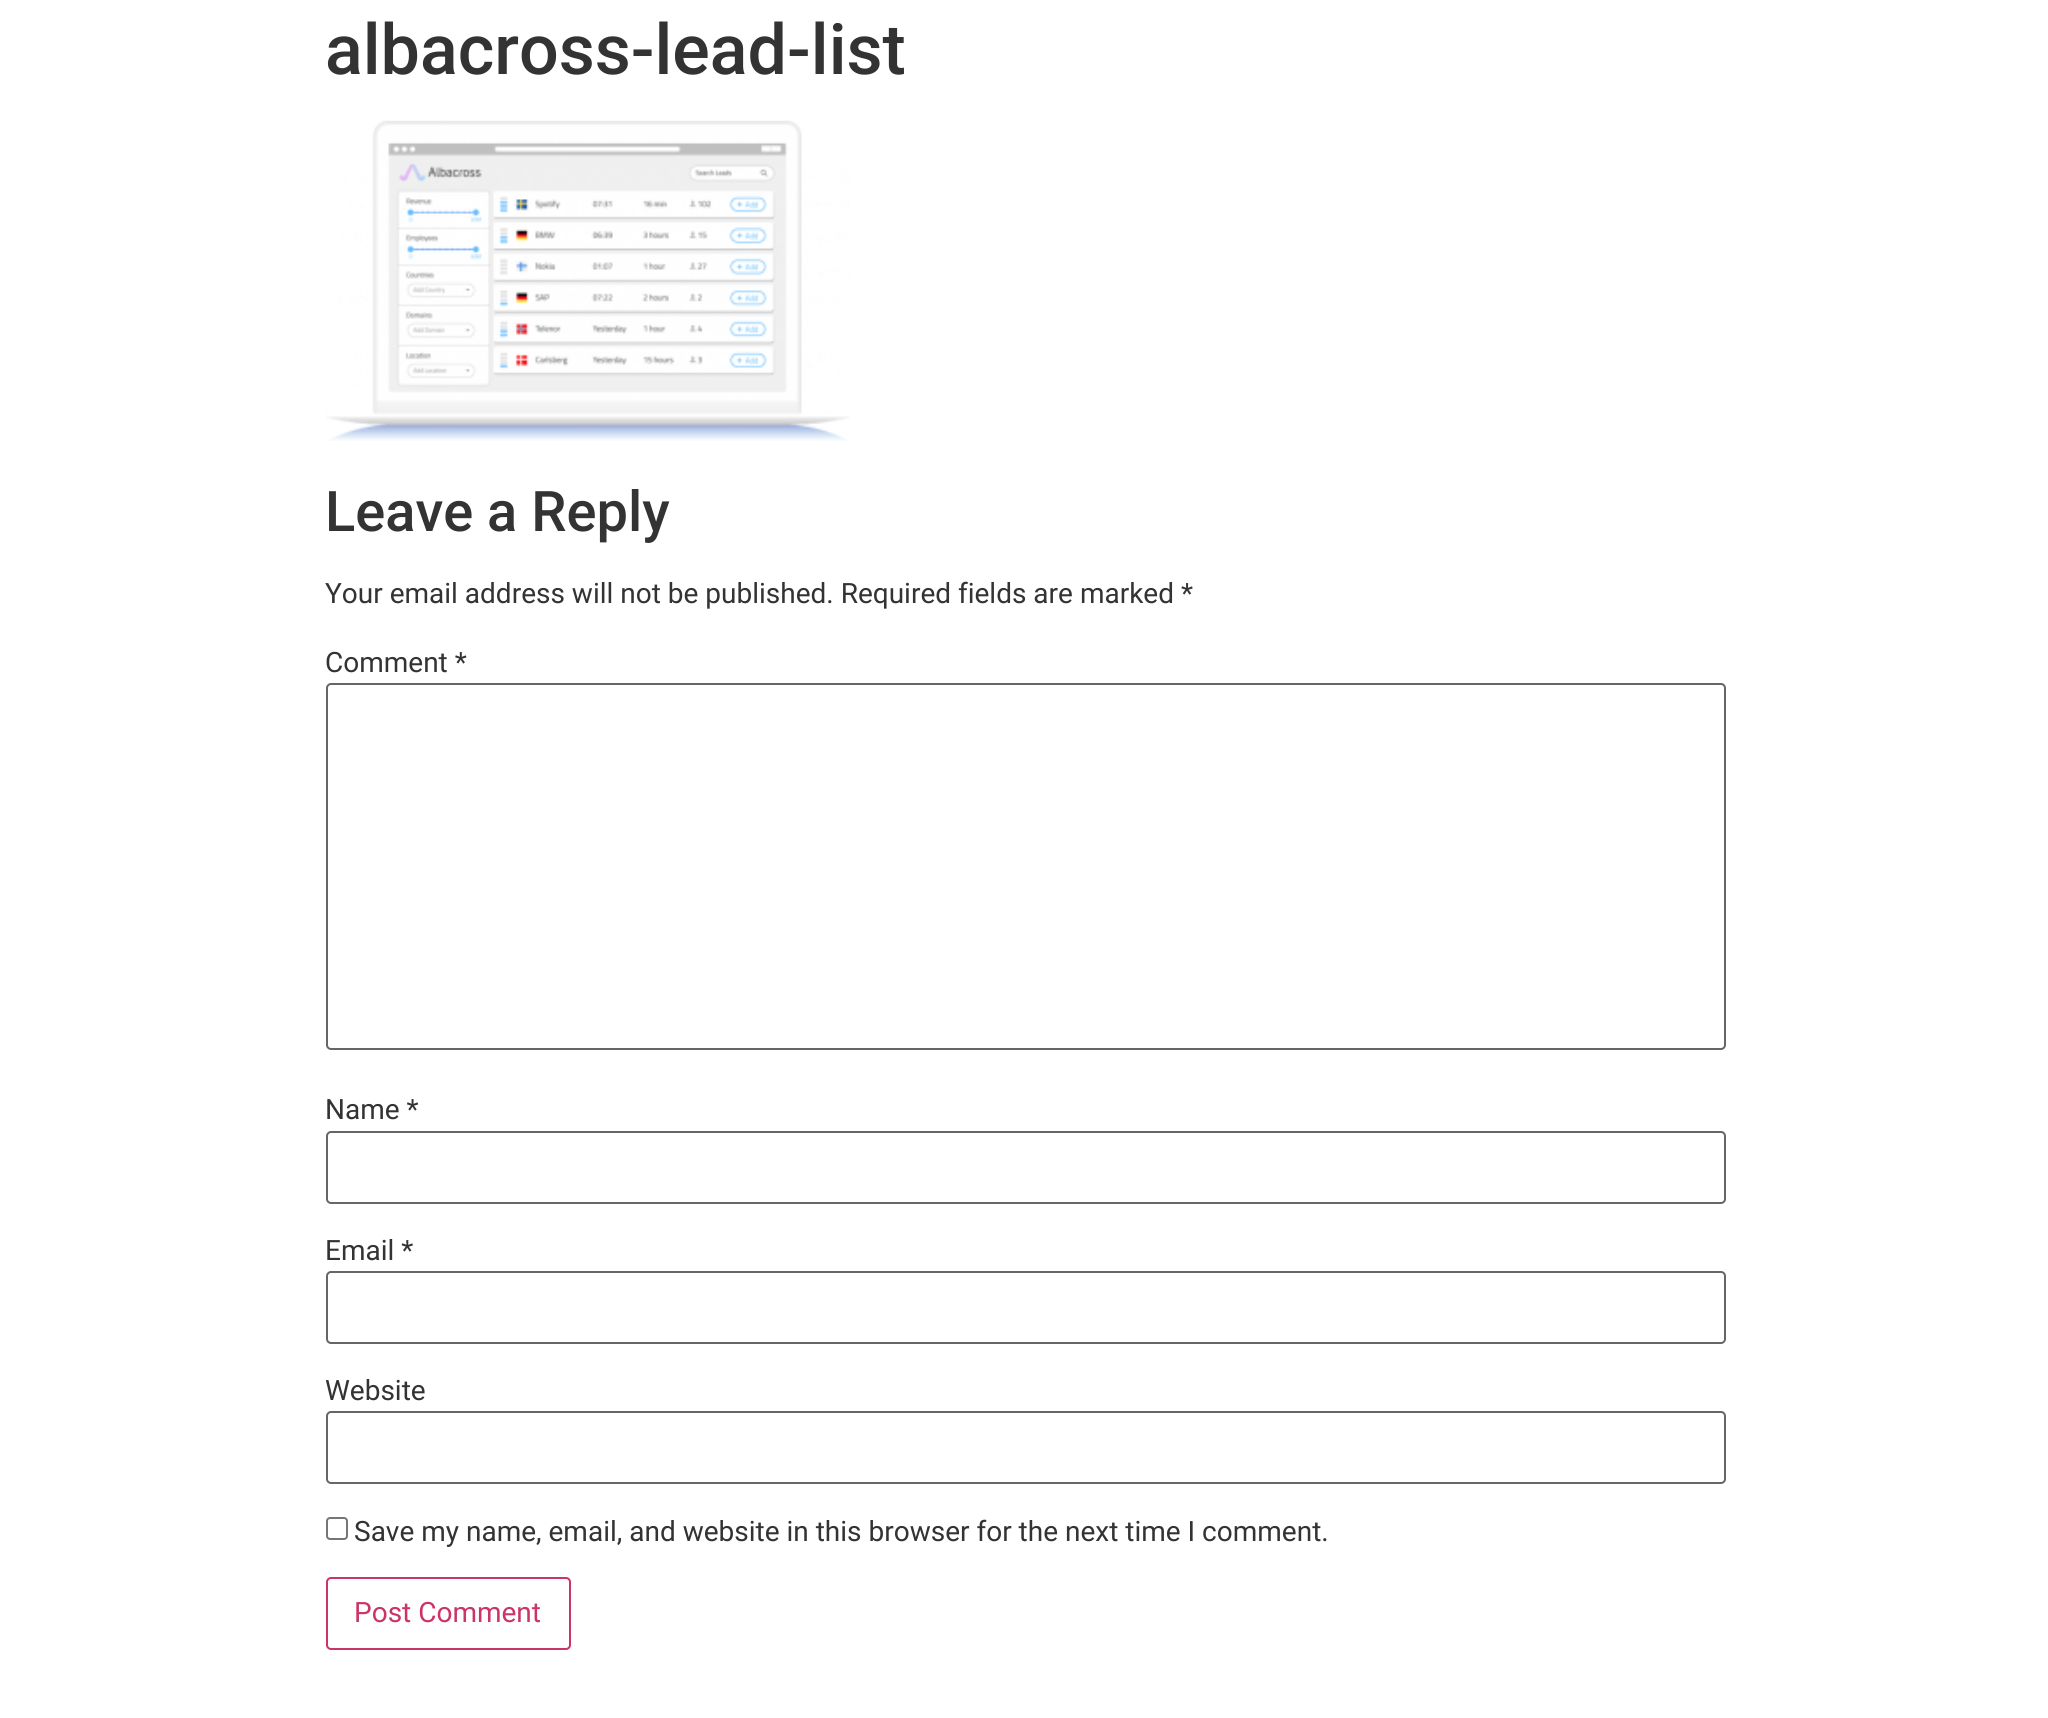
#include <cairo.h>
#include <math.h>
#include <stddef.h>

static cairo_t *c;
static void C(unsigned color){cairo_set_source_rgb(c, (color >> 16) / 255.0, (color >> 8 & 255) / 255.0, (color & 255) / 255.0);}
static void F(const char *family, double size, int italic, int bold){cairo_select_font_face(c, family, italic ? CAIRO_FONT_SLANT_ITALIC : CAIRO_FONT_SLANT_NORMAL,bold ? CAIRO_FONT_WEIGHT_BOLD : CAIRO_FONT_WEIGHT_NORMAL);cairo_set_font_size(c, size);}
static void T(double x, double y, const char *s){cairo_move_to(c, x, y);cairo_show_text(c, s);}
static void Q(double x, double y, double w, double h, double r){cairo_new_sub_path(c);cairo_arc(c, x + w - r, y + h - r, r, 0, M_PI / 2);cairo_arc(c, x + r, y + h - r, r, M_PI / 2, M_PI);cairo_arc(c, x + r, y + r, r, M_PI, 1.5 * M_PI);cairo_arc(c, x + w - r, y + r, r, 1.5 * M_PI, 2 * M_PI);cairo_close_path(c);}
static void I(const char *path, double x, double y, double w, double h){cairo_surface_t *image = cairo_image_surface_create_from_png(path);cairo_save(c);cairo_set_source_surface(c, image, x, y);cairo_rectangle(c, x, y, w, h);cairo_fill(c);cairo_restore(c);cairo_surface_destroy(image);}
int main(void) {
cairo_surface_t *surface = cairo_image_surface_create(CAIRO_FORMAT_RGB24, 2048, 1718);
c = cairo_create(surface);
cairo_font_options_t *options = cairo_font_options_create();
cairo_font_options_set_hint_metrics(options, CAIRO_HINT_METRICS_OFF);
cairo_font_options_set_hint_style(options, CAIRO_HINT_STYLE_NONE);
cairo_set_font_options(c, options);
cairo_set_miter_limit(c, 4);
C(0xffffff);
cairo_paint(c);
F("Roboto Medium",70,0,0);
C(0x333333);
T(325,74,"albacross-lead-list");
I("1.png",326,120,524,321);
F("Roboto Medium",56,0,0);
T(325,531,"Leave a Reply");
F("Roboto",28,0,0);
T(325,603,"Your email address will not be published. Required fields are marked *");
T(325,672,"Comment *");
Q(327,684,1398,365,4);
C(0x666666);
cairo_stroke(c);
C(0x333333);
T(325,1119,"Name *");
Q(327,1132,1398,71,4);
C(0x666666);
cairo_stroke(c);
C(0x333333);
T(325,1260,"Email *");
Q(327,1272,1398,71,4);
C(0x666666);
cairo_stroke(c);
C(0x333333);
T(325,1400,"Website");
Q(327,1412,1398,71,4);
C(0x666666);
cairo_stroke(c);
Q(327,1518,20,21,3);
C(0x767676);
cairo_stroke(c);
C(0x333333);
T(354,1541,"Save my name, email, and website in this browser for the next time I comment.");
Q(327,1578,243,71,4);
C(0xcc3366);
cairo_stroke(c);
T(354,1622,"Post Comment");
cairo_surface_write_to_png(surface, "o.png");
cairo_font_options_destroy(options);
cairo_destroy(c);
cairo_surface_destroy(surface);
return 0;
}
